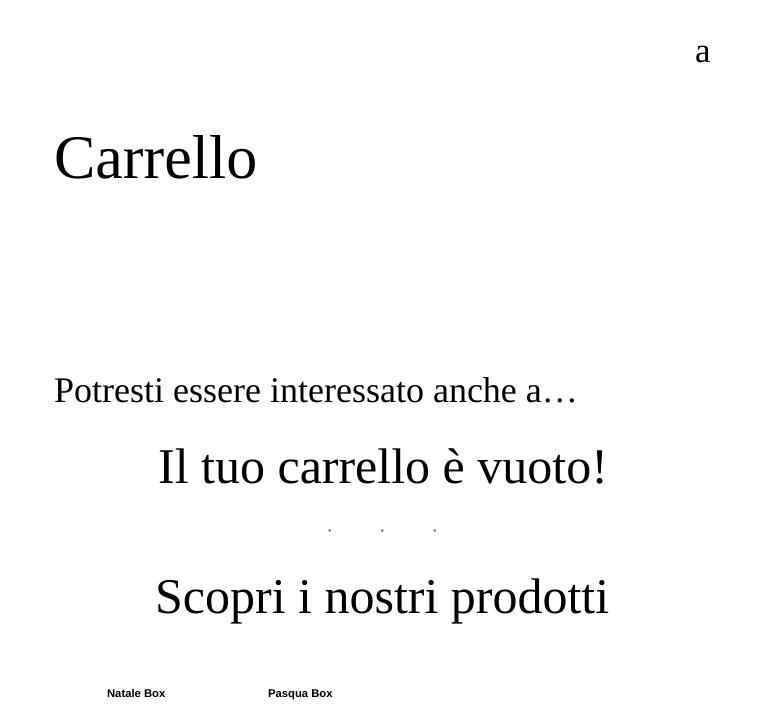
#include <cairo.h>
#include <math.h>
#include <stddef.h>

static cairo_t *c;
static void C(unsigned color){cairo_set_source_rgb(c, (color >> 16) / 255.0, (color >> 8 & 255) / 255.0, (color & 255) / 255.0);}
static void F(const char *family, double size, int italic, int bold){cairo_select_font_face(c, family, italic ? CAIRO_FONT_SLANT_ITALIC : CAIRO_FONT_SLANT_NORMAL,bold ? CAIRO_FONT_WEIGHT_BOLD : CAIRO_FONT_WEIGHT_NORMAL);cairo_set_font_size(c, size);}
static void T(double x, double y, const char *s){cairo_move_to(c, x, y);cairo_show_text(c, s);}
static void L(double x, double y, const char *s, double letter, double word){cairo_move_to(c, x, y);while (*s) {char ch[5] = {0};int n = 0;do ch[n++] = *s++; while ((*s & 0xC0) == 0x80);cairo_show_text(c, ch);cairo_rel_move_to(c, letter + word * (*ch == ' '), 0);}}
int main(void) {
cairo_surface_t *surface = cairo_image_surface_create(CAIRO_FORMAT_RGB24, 765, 713);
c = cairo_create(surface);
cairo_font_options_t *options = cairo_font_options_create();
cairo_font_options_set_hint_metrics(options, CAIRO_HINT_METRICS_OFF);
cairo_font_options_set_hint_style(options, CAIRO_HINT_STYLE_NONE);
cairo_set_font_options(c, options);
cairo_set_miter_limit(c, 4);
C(0xffffff);
cairo_paint(c);
F("Liberation Serif",35,0,0);
C(0x000000);
T(695,62,"a");
F("Liberation Serif",62,0,0);
T(54,178,"Carrello");
F("Liberation Serif",36,0,0);
T(54,402,"Potresti essere interessato anche a…");
F("Liberation Serif",50,0,0);
T(158,483,"Il tuo carrello è vuoto!");
F("Liberation Serif",22.5,0,0);
C(0x808080);
L(326,538,"···",45,0);
F("Liberation Serif",50,0,0);
C(0x000000);
T(155,613,"Scopri i nostri prodotti");
F("Liberation Sans",11.25,0,1);
T(107,697,"Natale Box");
T(268,697,"Pasqua Box");
cairo_surface_write_to_png(surface, "o.png");
cairo_font_options_destroy(options);
cairo_destroy(c);
cairo_surface_destroy(surface);
return 0;
}
